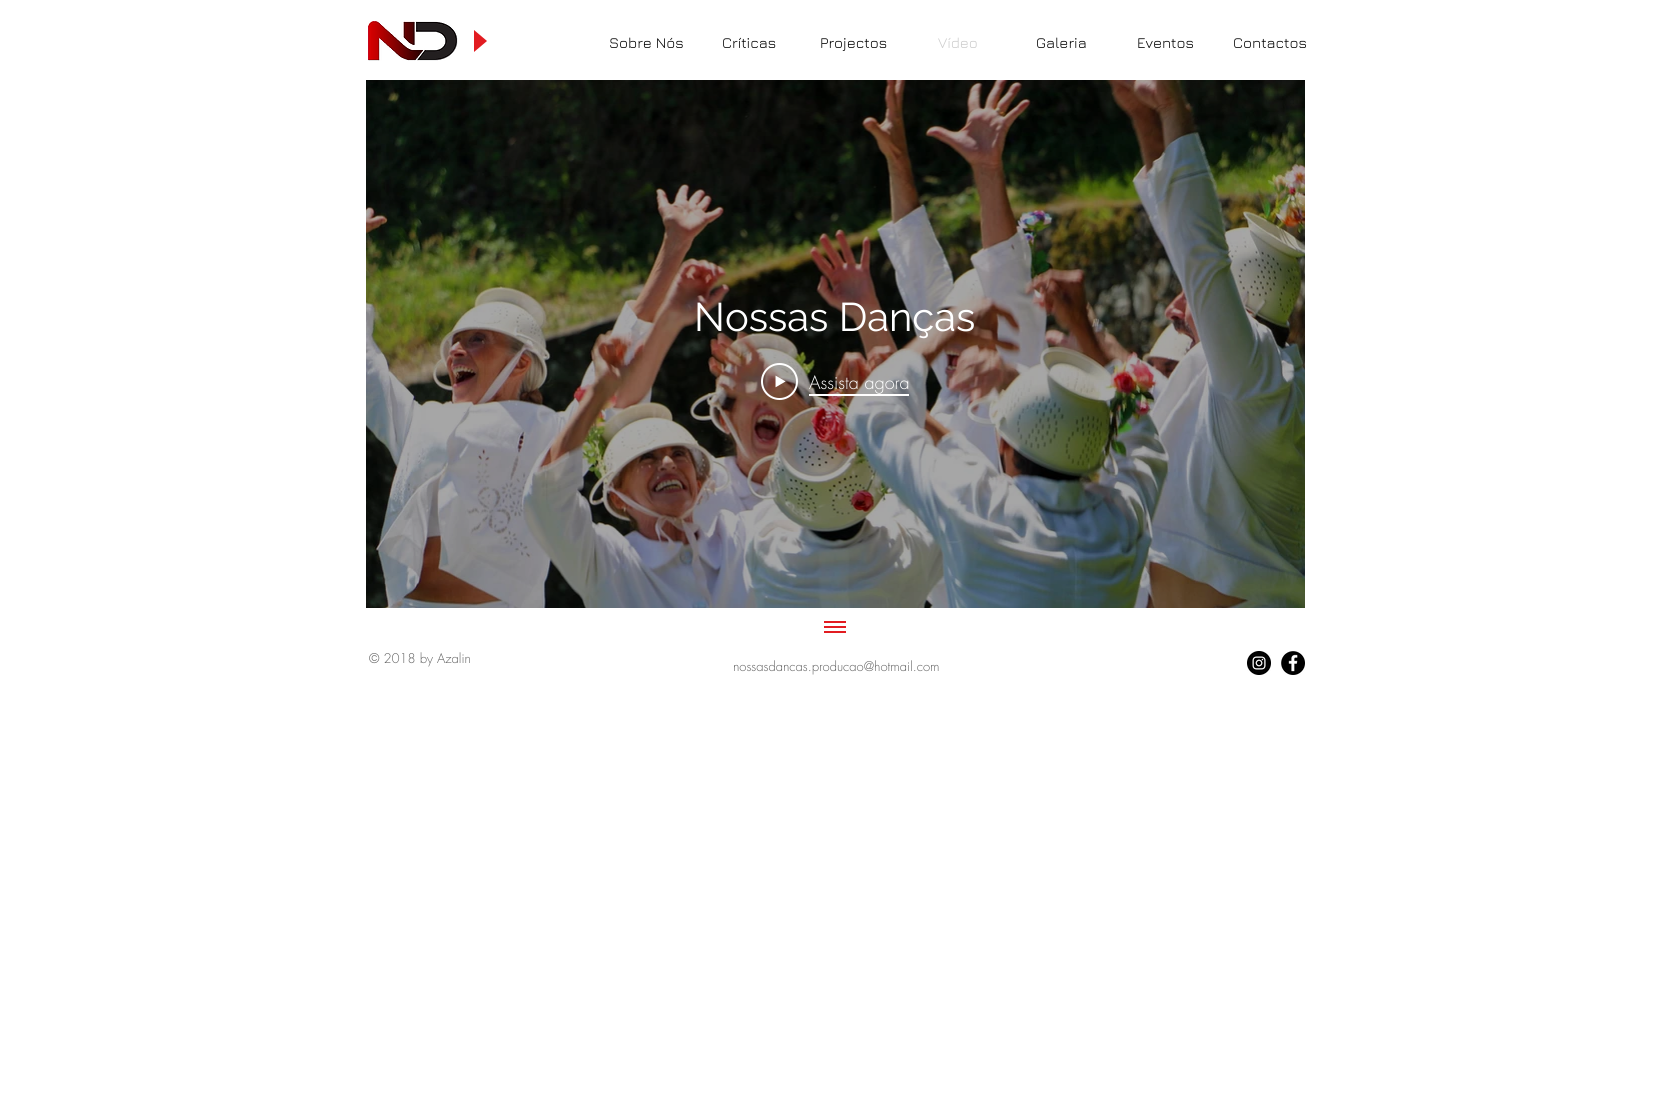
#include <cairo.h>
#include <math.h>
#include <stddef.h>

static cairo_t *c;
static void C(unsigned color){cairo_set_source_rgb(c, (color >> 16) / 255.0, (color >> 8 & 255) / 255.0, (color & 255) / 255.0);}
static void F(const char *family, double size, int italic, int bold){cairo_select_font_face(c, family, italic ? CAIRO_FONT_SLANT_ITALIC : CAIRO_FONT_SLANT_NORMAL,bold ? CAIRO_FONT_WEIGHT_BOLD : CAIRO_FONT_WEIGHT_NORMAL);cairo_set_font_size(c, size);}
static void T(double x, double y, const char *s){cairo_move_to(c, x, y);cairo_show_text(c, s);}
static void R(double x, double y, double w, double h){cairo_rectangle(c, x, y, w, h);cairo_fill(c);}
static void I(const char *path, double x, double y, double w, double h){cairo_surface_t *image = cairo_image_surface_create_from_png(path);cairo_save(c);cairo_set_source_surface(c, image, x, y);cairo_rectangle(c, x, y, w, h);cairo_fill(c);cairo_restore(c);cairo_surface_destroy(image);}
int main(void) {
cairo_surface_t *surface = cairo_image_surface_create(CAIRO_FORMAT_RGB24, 1673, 1109);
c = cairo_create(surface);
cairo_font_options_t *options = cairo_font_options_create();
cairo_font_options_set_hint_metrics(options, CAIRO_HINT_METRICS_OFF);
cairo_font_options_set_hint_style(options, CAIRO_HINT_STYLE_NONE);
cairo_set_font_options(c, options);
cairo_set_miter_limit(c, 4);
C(0xffffff);
cairo_paint(c);
I("1.png",368,21,90,40);
C(0xe21c21);
cairo_new_path(c);
cairo_move_to(c,474,52);
cairo_line_to(c,474,30);
cairo_line_to(c,487,41);
cairo_close_path(c);
cairo_fill(c);
F("Jura",15,0,0);
C(0x000000);
T(609,48,"Sobre Nós");
T(722,48,"Críticas");
T(820,48,"Projectos");
C(0xcccccc);
T(938,48,"Vídeo");
C(0x000000);
T(1036,48,"Galeria");
T(1137,48,"Eventos");
T(1233,48,"Contactos");
I("2.png",1246,80,59,528);
I("3.png",366,80,880,528);
F("Raleway",40,0,0);
C(0xffffff);
T(694,331,"Nossas Danças");
I("4.png",761,363,37,37);
R(809,394,100,2);
F("futura Light",18,0,0);
T(809,389,"Assista agora");
I("5.png",824,621,22,12);
F("futura Light",13,0,0);
C(0x606060);
T(369,663,"© 2018 by Azalin");
T(733,671,"nossasdancas.producao@hotmail.com");
I("6.png",1247,651,24,24);
I("7.png",1281,651,24,24);
cairo_surface_write_to_png(surface, "o.png");
cairo_font_options_destroy(options);
cairo_destroy(c);
cairo_surface_destroy(surface);
return 0;
}
